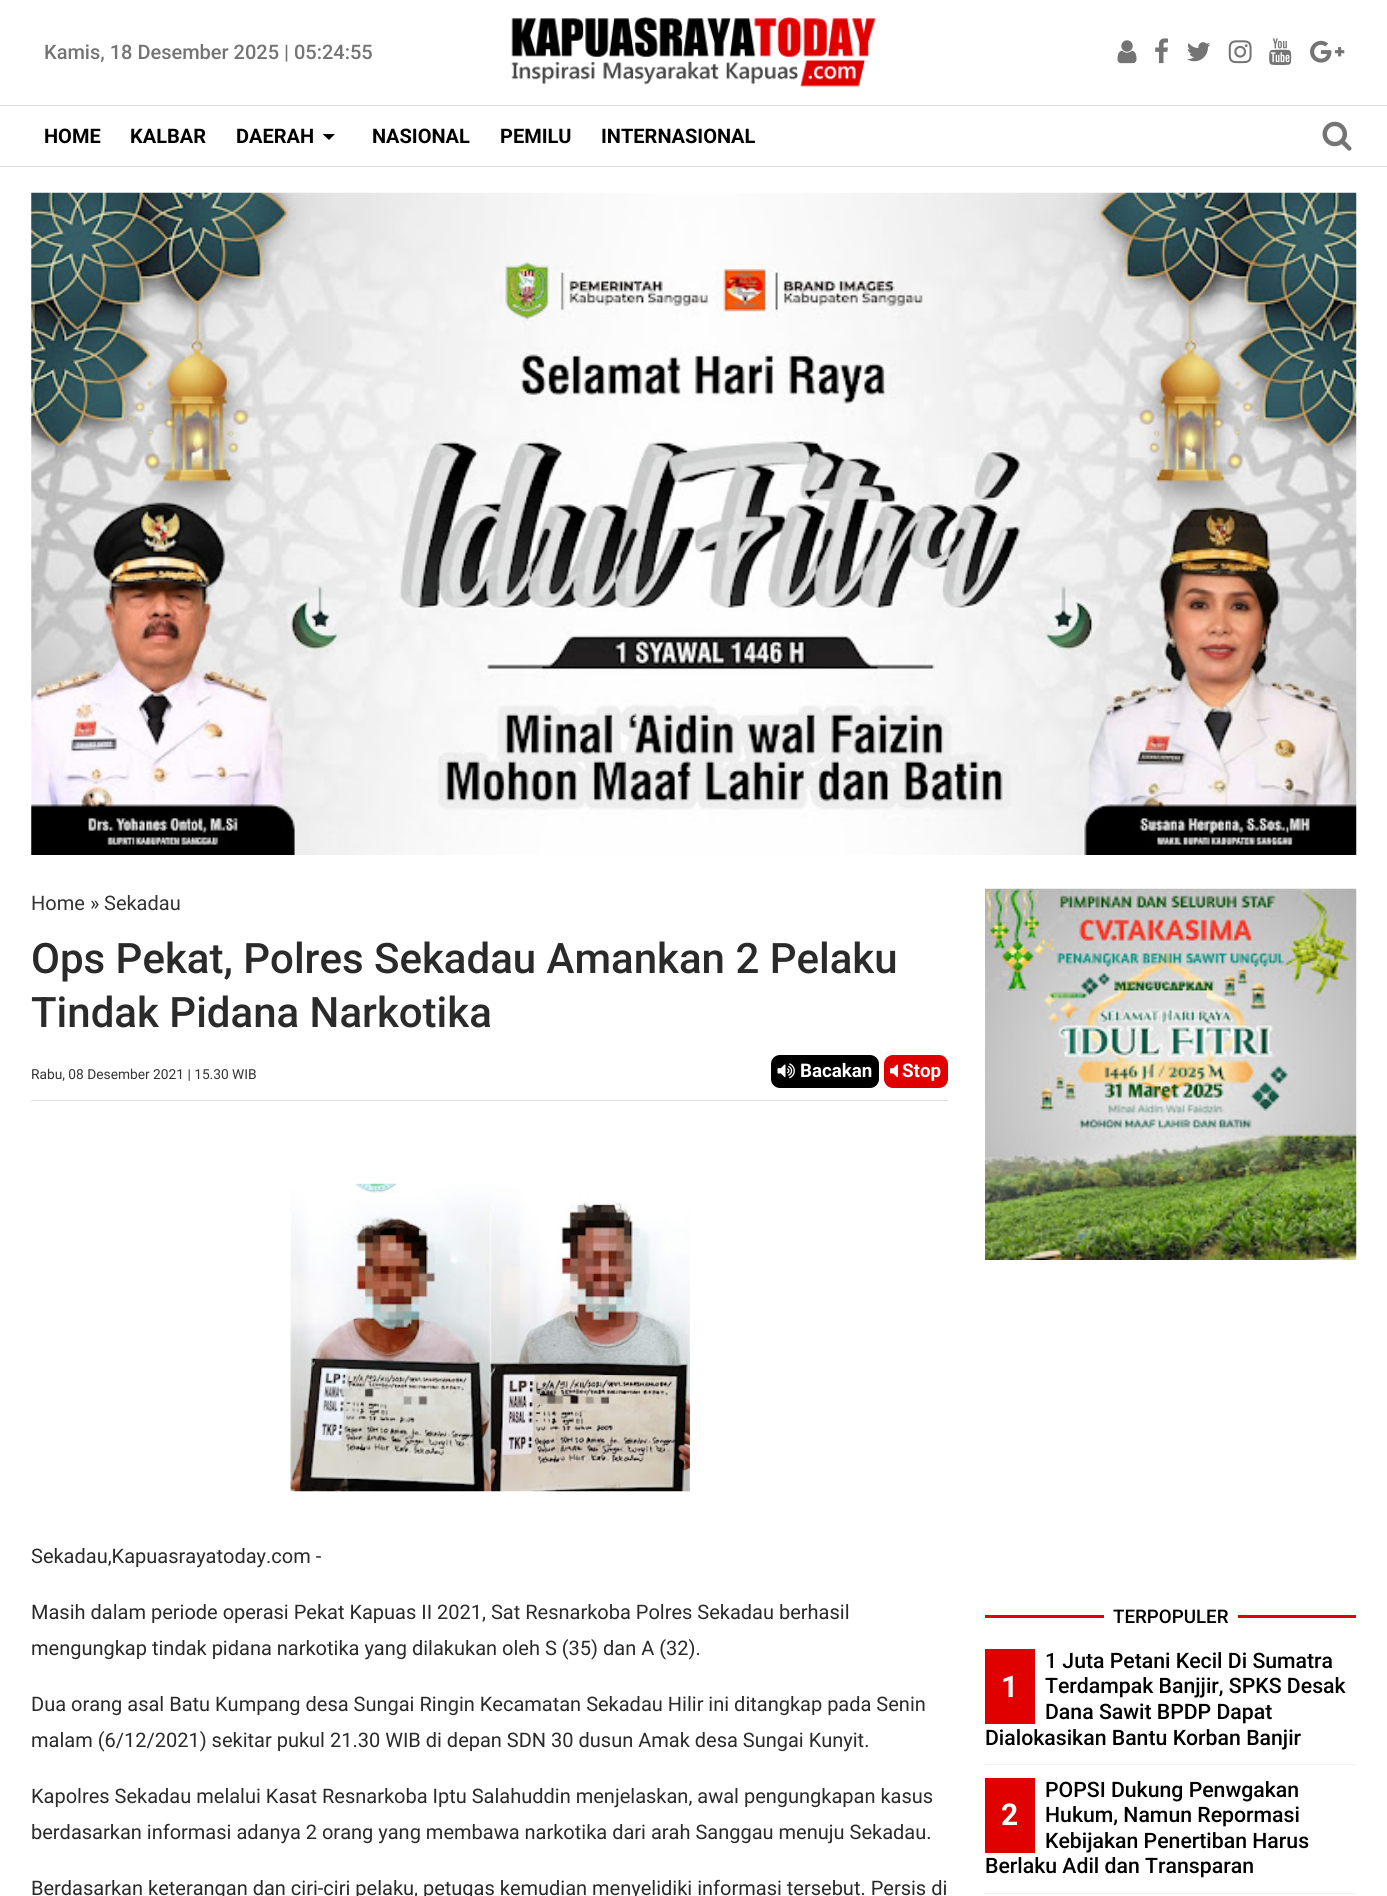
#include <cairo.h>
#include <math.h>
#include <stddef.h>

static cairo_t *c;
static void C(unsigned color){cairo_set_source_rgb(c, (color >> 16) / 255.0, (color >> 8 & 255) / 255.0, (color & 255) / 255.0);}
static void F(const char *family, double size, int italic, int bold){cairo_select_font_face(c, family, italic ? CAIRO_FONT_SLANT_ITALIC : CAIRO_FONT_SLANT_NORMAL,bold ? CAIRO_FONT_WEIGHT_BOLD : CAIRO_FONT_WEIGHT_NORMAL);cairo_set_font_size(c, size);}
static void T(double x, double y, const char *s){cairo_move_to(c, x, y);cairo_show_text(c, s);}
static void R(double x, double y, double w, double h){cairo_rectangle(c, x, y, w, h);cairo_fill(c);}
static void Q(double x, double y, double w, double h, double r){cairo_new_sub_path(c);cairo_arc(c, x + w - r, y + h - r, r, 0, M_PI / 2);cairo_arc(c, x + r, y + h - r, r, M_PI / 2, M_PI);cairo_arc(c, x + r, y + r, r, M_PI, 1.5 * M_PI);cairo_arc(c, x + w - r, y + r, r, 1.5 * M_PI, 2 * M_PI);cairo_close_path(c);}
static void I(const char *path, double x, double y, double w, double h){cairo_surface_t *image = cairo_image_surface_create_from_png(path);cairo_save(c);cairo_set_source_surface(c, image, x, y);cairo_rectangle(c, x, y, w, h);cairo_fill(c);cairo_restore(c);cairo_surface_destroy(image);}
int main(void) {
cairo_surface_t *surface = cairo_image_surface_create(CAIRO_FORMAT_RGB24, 1387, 1896);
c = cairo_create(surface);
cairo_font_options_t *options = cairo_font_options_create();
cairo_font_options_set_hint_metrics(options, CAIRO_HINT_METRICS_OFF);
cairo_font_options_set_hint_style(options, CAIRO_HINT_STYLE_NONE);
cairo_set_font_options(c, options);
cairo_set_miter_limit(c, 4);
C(0xffffff);
cairo_paint(c);
F("Roboto Medium",20,0,0);
C(0x747474);
T(44,59,"Kamis, 18 Desember 2025 | 05:24:55");
I("1.png",511,17,365,70);
I("2.png",1117,40,20,24);
I("3.png",1155,38,13,26);
I("4.png",1187,42,24,20);
I("5.png",1228,40,24,24);
I("6.png",1269,38,23,28);
I("7.png",1310,40,35,23);
C(0xdcdcdc);
R(0,105,1387,1);
R(0,166,1387,1);
F("Roboto",20,0,1);
C(0x000000);
T(44,143,"HOME");
T(130,143,"KALBAR");
T(236,143,"DAERAH");
cairo_new_path(c);
cairo_move_to(c,322.5,134);
cairo_line_to(c,335,134);
cairo_line_to(c,329,140);
cairo_close_path(c);
cairo_fill(c);
T(372,143,"NASIONAL");
T(500,143,"PEMILU");
T(601,143,"INTERNASIONAL");
I("8.png",1322,121,30,30);
I("9.png",31,192,1326,663);
F("Roboto",20,0,0);
C(0x333333);
T(31,910,"Home");
C(0x2a2a2a);
T(90,910,"»");
C(0x333333);
T(104,910,"Sekadau");
F("Roboto Medium",42,0,0);
C(0x2a2a2a);
T(31,973,"Ops Pekat, Polres Sekadau Amankan 2 Pelaku");
T(31,1027,"Tindak Pidana Narkotika");
F("Roboto",13.75,0,0);
C(0x333333);
T(31,1079,"Rabu, 08 Desember 2021 | 15.30 WIB");
C(0x000000);
Q(771,1055,108,33,9);
cairo_fill(c);
I("10.png",777,1063,18,16);
F("Roboto",18.75,0,1);
C(0xffffff);
T(800,1077,"Bacakan");
C(0xe10000);
Q(884,1055,64,33,9);
cairo_fill(c);
I("11.png",890,1064,9,14);
C(0xffffff);
T(902,1077,"Stop");
C(0xdddddd);
R(31,1100,917,1);
I("12.png",290,1183,400,309);
F("Roboto",20,0,0);
C(0x2a2a2a);
T(31,1563,"Sekadau,Kapuasrayatoday.com -");
T(31,1619,"Masih dalam periode operasi Pekat Kapuas II 2021, Sat Resnarkoba Polres Sekadau berhasil");
T(31,1655,"mengungkap tindak pidana narkotika yang dilakukan oleh S (35) dan A (32).");
T(31,1711,"Dua orang asal Batu Kumpang desa Sungai Ringin Kecamatan Sekadau Hilir ini ditangkap pada Senin");
T(31,1747,"malam (6/12/2021) sekitar pukul 21.30 WIB di depan SDN 30 dusun Amak desa Sungai Kunyit.");
T(31,1803,"Kapolres Sekadau melalui Kasat Resnarkoba Iptu Salahuddin menjelaskan, awal pengungkapan kasus");
T(31,1839,"berdasarkan informasi adanya 2 orang yang membawa narkotika dari arah Sanggau menuju Sekadau.");
T(31,1895,"Berdasarkan keterangan dan ciri-ciri pelaku, petugas kemudian menyelidiki informasi tersebut. Persis di");
I("13.png",985,888,372,372);
C(0xe10000);
R(985,1615,371,3);
C(0xffffff);
R(1104,1615,134,3);
F("Roboto Medium",18.75,0,0);
C(0x000000);
T(1113,1623,"TERPOPULER");
C(0xf1f1f1);
R(985,1764,371,1);
F("Roboto Medium",21.25,0,0);
C(0x000000);
T(1045,1668,"1 Juta Petani Kecil Di Sumatra");
C(0xe10000);
R(985,1649,50,75);
F("Roboto",30,0,1);
C(0xffffff);
T(1001,1697,"1");
F("Roboto Medium",21.25,0,0);
C(0x000000);
T(1045,1693,"Terdampak Banjjir, SPKS Desak");
T(1045,1719,"Dana Sawit BPDP Dapat");
T(985,1745,"Dialokasikan Bantu Korban Banjir");
C(0xf1f1f1);
R(985,1893,371,1);
C(0x000000);
T(1045,1797,"POPSI Dukung Penwgakan");
C(0xe10000);
R(985,1778,50,75);
F("Roboto",30,0,1);
C(0xffffff);
T(1001,1825,"2");
F("Roboto Medium",21.25,0,0);
C(0x000000);
T(1045,1822,"Hukum, Namun Repormasi");
T(1045,1848,"Kebijakan Penertiban Harus");
T(985,1873,"Berlaku Adil dan Transparan");
cairo_surface_write_to_png(surface, "o.png");
cairo_font_options_destroy(options);
cairo_destroy(c);
cairo_surface_destroy(surface);
return 0;
}
